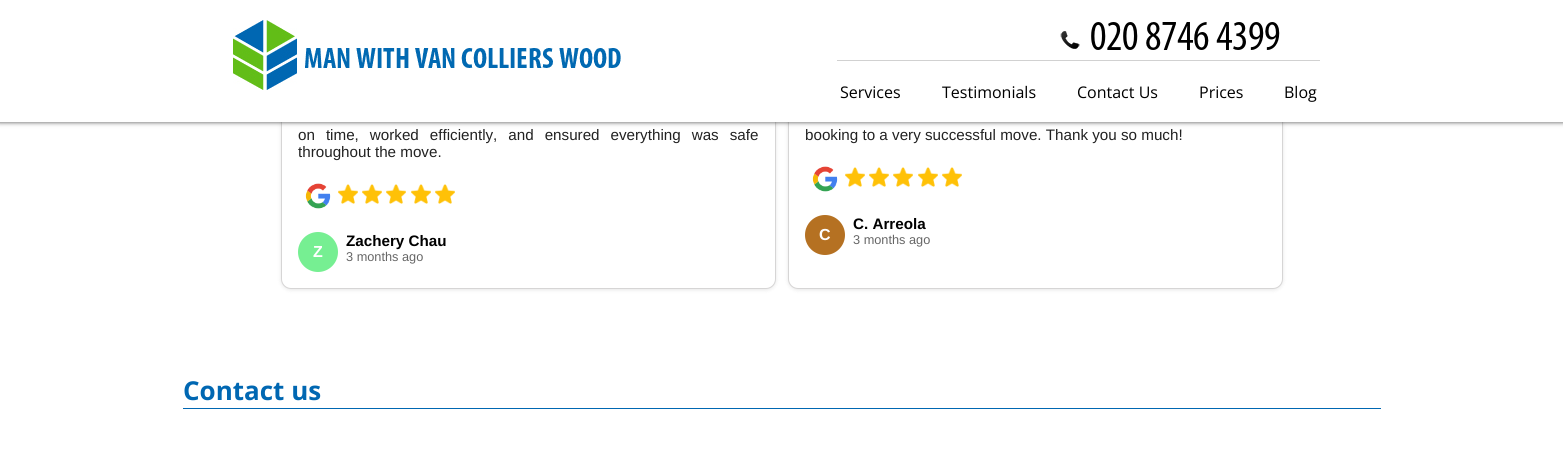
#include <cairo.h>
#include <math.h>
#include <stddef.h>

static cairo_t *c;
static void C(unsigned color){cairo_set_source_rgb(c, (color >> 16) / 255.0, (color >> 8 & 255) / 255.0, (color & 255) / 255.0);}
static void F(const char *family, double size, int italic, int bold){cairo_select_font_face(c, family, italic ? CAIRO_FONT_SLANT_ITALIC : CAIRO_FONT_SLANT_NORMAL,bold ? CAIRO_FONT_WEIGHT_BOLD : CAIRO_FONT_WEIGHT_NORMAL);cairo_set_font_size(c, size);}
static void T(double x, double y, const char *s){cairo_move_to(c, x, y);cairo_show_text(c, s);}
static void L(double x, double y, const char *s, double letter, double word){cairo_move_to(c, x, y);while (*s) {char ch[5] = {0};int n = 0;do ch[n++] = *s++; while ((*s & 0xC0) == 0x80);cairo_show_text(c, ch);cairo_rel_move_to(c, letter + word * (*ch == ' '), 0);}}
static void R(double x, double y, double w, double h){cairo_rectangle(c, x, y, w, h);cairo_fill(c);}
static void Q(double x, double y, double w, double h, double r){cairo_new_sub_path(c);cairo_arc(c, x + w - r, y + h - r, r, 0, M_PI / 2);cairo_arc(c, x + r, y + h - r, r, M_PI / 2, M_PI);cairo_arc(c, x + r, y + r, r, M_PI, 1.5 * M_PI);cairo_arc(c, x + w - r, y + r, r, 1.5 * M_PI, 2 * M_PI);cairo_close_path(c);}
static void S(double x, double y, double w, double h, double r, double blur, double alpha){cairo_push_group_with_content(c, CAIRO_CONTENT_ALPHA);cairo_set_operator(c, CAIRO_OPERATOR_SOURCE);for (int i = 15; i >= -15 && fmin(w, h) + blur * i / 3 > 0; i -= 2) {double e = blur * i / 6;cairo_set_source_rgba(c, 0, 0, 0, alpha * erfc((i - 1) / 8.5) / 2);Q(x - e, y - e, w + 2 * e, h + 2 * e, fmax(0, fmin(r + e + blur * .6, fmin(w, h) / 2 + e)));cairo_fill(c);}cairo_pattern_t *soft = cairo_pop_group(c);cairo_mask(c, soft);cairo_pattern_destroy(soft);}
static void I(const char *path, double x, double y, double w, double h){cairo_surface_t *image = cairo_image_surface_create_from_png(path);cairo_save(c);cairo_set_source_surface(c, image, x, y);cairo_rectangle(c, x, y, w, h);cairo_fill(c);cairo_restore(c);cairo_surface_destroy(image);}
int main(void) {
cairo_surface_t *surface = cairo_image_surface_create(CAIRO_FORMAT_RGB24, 1563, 450);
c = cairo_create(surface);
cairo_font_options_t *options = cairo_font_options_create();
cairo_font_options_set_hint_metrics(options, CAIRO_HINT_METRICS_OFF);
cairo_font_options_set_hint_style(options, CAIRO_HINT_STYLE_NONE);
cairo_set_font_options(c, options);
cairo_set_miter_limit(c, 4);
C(0xffffff);
cairo_paint(c);
C(0x000000);
S(281,53,495,237,10,2,.1);
C(0xffffff);
Q(281.5,52.5,494,236,9.5);
cairo_fill_preserve(c);
C(0xd6d5d5);
cairo_set_line_width(c,1);
cairo_stroke(c);
C(0x000000);
S(788,53,495,237,10,2,.1);
C(0xffffff);
Q(788.5,52.5,494,236,9.5);
cairo_fill_preserve(c);
C(0xd6d5d5);
cairo_stroke(c);
C(0x4c4c4c);
S(-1,-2,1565,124,0,2.5,1);
C(0xffffff);
R(0,0,1563,122);
I("1.png",233,20,388,70);
I("2.png",1060,31,20,18);
I("3.png",1091,22,189,28);
C(0xd1d1d1);
R(837,60,483,1);
F("Open Sans",16,0,0);
C(0x000000);
T(840,98,"Services");
T(942,98,"Testimonials");
T(1077,98,"Contact Us");
T(1199,98,"Prices");
T(1284,98,"Blog");
F("Liberation Sans",15.2,0,0);
C(0x222222);
L(298,140,"on time, worked efficiently, and ensured everything was safe",0,6.75);
T(298,157,"throughout the move.");
I("4.png",305,183,26,26);
I("5.png",338,184,20,20);
I("6.png",362,184,20,20);
I("5.png",386,184,20,20);
I("5.png",411,184,20,20);
I("5.png",435,184,20,20);
C(0x76ef92);
cairo_arc(c,318,252,20,0,2 * M_PI);
cairo_fill(c);
F("Liberation Sans",16,0,1);
C(0xffffff);
T(313,257,"Z");
F("Liberation Sans",15.2,0,1);
C(0x000000);
T(346,246,"Zachery Chau");
F("Liberation Sans",12.75,0,0);
C(0x666666);
T(346,261,"3 months ago");
F("Liberation Sans",15.2,0,0);
C(0x222222);
T(805,140,"booking to a very successful move. Thank you so much!");
I("7.png",812,166,26,26);
I("5.png",845,167,20,20);
I("5.png",869,167,20,20);
I("5.png",893,167,20,20);
I("5.png",918,167,20,20);
I("5.png",942,167,20,20);
C(0xb57122);
cairo_arc(c,825,235,20,0,2 * M_PI);
cairo_fill(c);
F("Liberation Sans",16,0,1);
C(0xffffff);
T(819,240,"C");
F("Liberation Sans",15.2,0,1);
C(0x000000);
T(853,229,"C. Arreola");
F("Liberation Sans",12.75,0,0);
C(0x666666);
T(853,244,"3 months ago");
C(0x0067b2);
R(183,408,1198,1);
F("Open Sans",26,0,1);
T(183,400,"Contact us");
cairo_surface_write_to_png(surface, "o.png");
cairo_font_options_destroy(options);
cairo_destroy(c);
cairo_surface_destroy(surface);
return 0;
}
